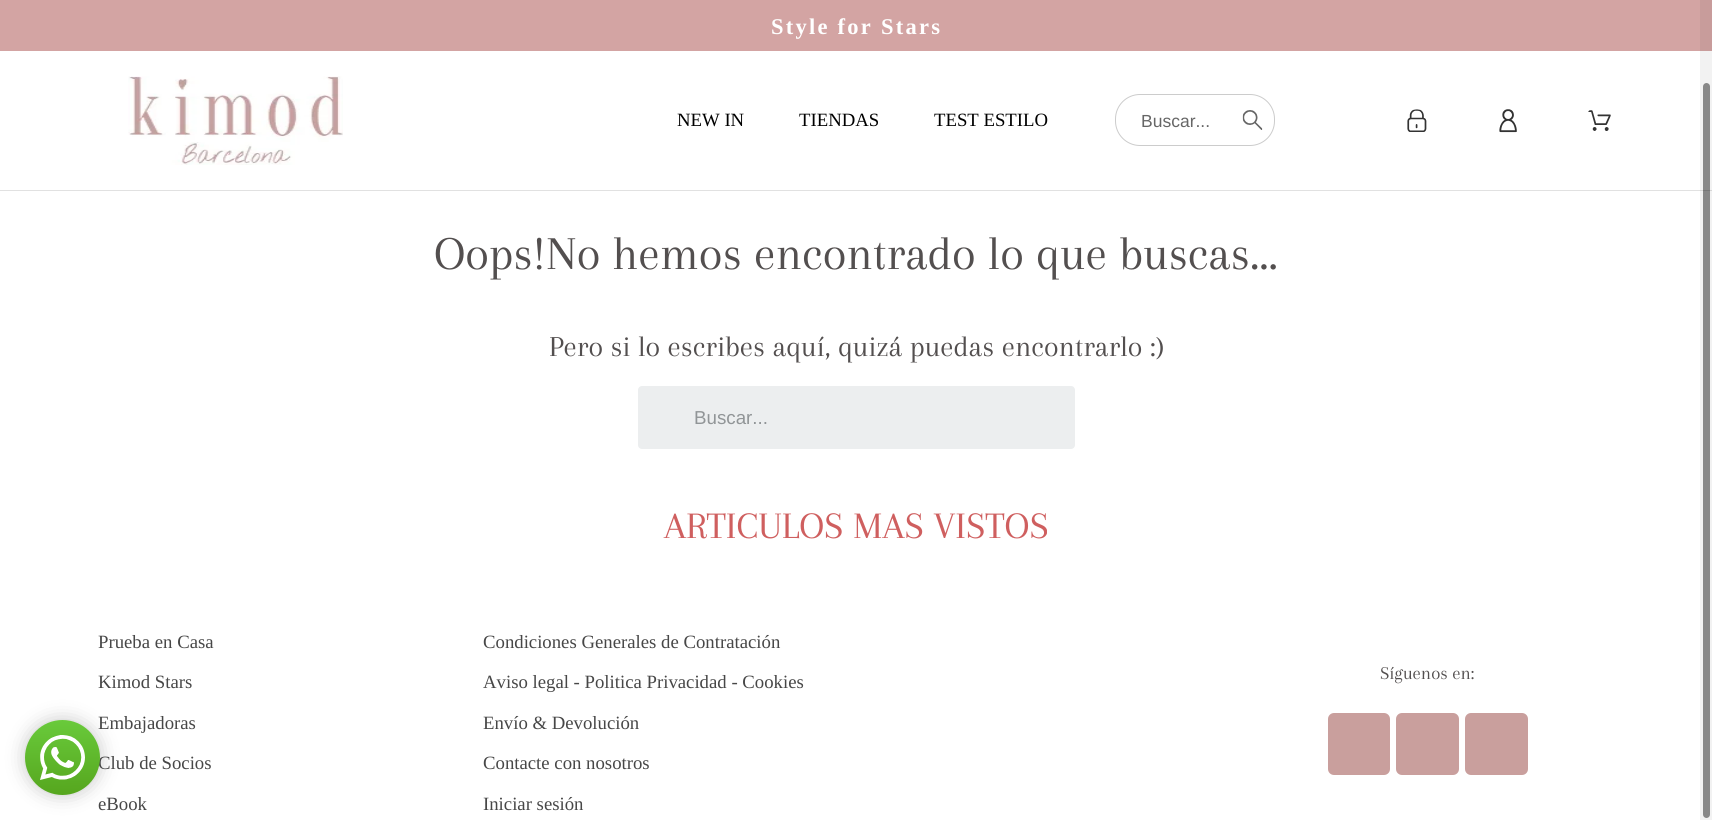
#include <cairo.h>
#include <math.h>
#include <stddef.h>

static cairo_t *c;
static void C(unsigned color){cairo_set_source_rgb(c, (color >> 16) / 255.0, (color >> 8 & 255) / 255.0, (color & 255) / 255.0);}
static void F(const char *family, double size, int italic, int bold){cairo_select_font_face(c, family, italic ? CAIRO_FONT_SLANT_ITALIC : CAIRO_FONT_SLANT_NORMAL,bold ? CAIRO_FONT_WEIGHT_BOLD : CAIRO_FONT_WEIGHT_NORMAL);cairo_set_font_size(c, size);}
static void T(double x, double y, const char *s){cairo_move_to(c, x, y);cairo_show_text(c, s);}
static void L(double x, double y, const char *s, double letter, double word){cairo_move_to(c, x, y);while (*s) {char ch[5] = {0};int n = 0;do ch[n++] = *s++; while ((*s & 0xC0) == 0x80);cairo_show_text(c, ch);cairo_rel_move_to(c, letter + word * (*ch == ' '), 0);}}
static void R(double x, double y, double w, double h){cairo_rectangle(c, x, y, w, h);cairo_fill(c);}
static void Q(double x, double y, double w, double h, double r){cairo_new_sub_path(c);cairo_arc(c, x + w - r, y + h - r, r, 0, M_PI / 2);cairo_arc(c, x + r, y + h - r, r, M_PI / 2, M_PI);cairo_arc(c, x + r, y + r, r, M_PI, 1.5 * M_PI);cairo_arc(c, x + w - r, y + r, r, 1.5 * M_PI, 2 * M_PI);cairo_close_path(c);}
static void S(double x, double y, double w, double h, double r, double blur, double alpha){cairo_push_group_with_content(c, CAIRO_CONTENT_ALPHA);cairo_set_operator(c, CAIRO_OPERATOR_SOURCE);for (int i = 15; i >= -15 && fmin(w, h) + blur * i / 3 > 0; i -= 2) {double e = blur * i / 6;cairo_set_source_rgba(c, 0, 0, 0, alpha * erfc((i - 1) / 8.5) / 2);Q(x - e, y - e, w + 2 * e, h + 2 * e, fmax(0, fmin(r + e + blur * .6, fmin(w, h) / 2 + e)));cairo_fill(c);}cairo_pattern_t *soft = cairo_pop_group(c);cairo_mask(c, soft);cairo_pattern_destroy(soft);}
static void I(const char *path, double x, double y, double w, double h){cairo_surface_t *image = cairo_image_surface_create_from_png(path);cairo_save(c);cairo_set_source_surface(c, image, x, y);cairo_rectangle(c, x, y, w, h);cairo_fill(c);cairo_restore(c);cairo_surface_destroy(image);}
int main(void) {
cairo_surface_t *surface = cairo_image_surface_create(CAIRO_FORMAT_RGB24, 1712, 820);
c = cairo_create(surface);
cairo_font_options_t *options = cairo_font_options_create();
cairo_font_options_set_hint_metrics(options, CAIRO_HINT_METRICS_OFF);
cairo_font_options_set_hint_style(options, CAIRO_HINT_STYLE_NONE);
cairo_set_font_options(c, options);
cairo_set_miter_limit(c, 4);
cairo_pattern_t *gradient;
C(0xffffff);
cairo_paint(c);
C(0xf2f2f2);
R(1700,51,12,769);
C(0xe1e1e1);
R(0,190,1700,1);
C(0xd6d6d6);
R(1700,190,12,1);
C(0xd3a4a3);
R(0,0,1700,51);
C(0xc89c9b);
R(1700,0,12,51);
F("Liberation Serif",22.5,0,1);
C(0xffffff);
L(771,34,"Style for Stars",2.25,0);
I("1.png",128,76,215,89);
F("Liberation Serif",18.75,0,0);
C(0x000000);
T(677,126,"NEW IN");
T(799,126,"TIENDAS");
T(934,126,"TEST ESTILO");
Q(1115.5,94.5,159,51,24.5);
C(0xcccccc);
cairo_set_line_width(c,1);
cairo_stroke(c);
F("Liberation Sans",17.5,0,0);
C(0x666666);
T(1141,127,"Buscar...");
I("2.png",1242,110,21,20);
I("3.png",1407,109,20,23);
I("4.png",1499,109,18,24);
I("5.png",1588,110,23,21);
cairo_set_source_rgba(c,0,0,0,0.44);
Q(1703,83,7,735,3.5);
cairo_fill(c);
F("Arapey",48.75,0,0);
C(0x534f4f);
T(434,269,"Oops!No hemos encontrado lo que buscas...");
F("Arapey",30,0,0);
T(549,356,"Pero si lo escribes aquí, quizá puedas encontrarlo :)");
C(0xeceeef);
Q(638,386,437,63,4);
cairo_fill(c);
F("Liberation Sans",18.75,0,0);
C(0x919597);
T(694,424,"Buscar...");
F("Arapey",38.75,0,0);
C(0xcf5f5f);
T(664,538,"ARTICULOS MAS VISTOS");
C(0x000000);
S(25,720,75,75,37.5,9.5,.22);
F("Liberation Serif",18.75,0,0);
C(0x474747);
T(98,729,"Embajadoras");
T(98,769,"Club de Socios");
gradient = cairo_pattern_create_linear(62,720,63,795);
cairo_pattern_add_color_stop_rgba(gradient,0,0.412,0.792,0.231,1);
cairo_pattern_add_color_stop_rgba(gradient,1,0.337,0.651,0.118,1);
cairo_set_source(c,gradient);
cairo_pattern_destroy(gradient);
cairo_new_path(c);
cairo_arc(c,62.5,757.5,37.5,0,2 * M_PI);
cairo_fill(c);
I("6.png",40,735,45,45);
C(0x474747);
T(98,648,"Prueba en Casa");
T(98,688,"Kimod Stars");
T(98,810,"eBook");
T(483,648,"Condiciones Generales de Contratación");
T(483,688,"Aviso legal - Politica Privacidad - Cookies");
T(483,729,"Envío & Devolución");
T(483,769,"Contacte con nosotros");
T(483,810,"Iniciar sesión");
F("Arapey",18.75,0,0);
C(0x534f4f);
T(1380,679,"Síguenos en:");
C(0xc99f9d);
Q(1328,713,62,62,6);
cairo_fill(c);
Q(1396,713,63,62,6);
cairo_fill(c);
Q(1465,713,63,62,6);
cairo_fill(c);
cairo_surface_write_to_png(surface, "o.png");
cairo_font_options_destroy(options);
cairo_destroy(c);
cairo_surface_destroy(surface);
return 0;
}
